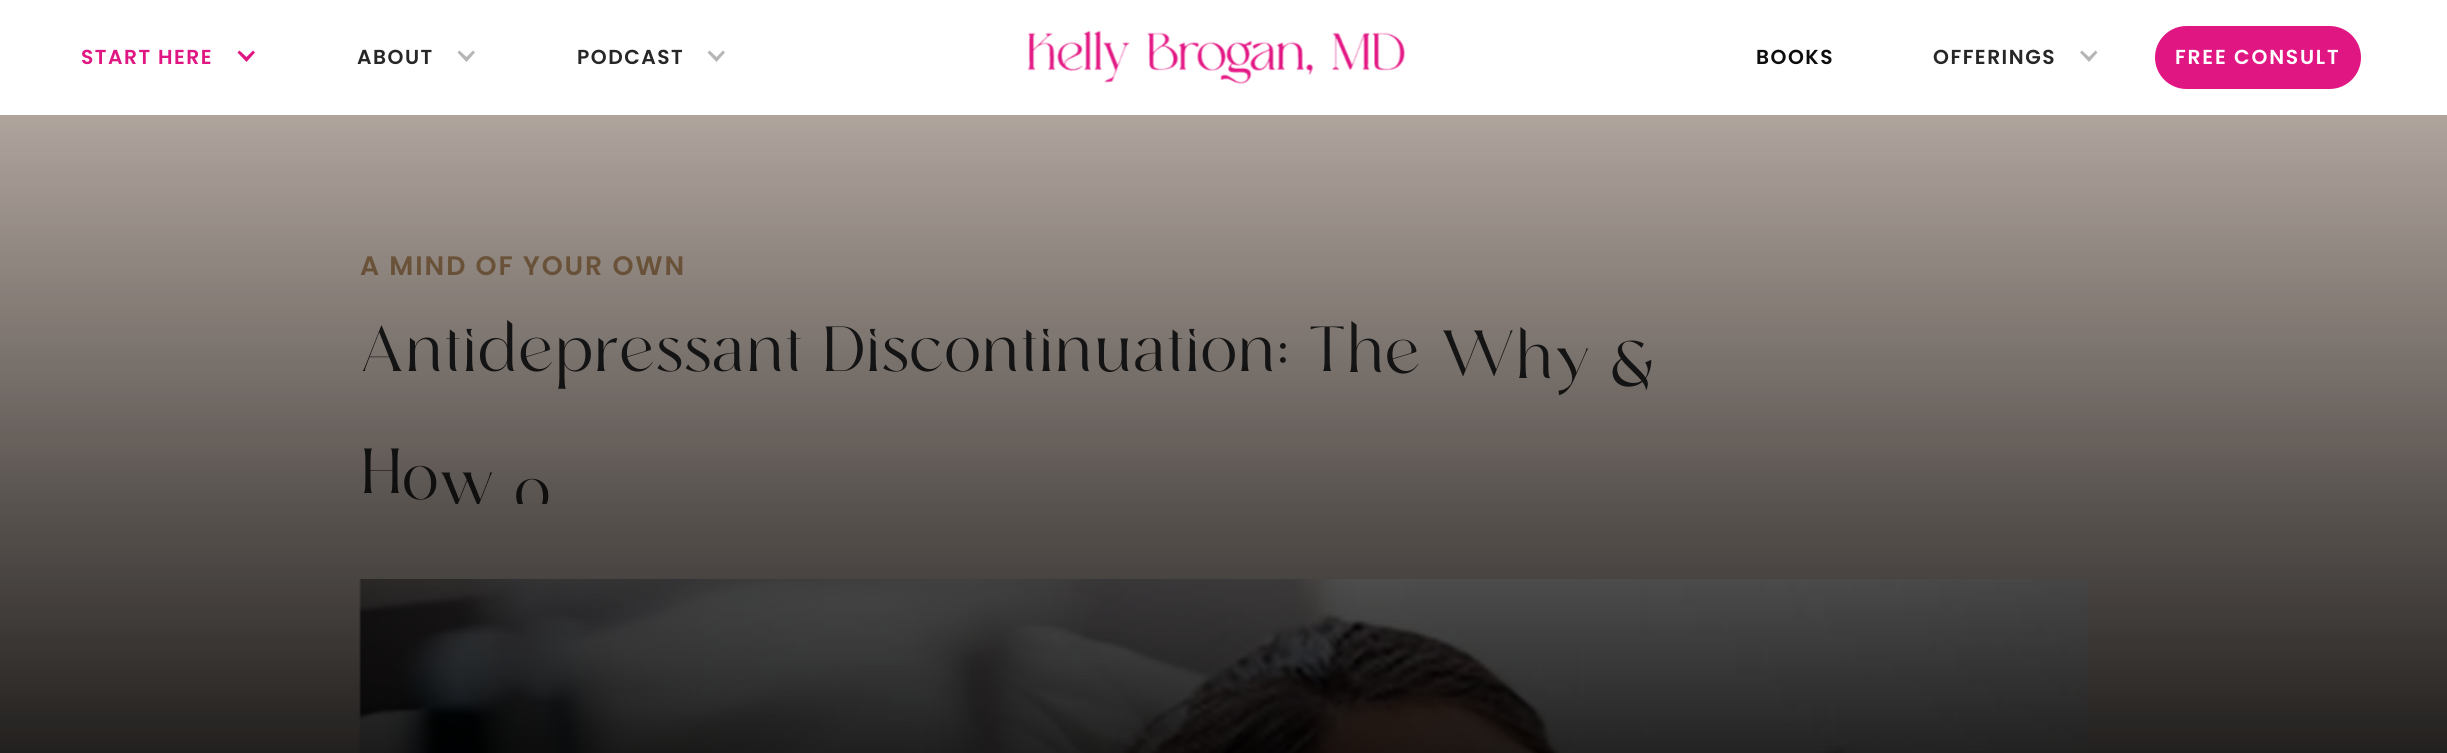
#include <cairo.h>
#include <math.h>
#include <stddef.h>

static cairo_t *c;
static void C(unsigned color){cairo_set_source_rgb(c, (color >> 16) / 255.0, (color >> 8 & 255) / 255.0, (color & 255) / 255.0);}
static void F(const char *family, double size, int italic, int bold){cairo_select_font_face(c, family, italic ? CAIRO_FONT_SLANT_ITALIC : CAIRO_FONT_SLANT_NORMAL,bold ? CAIRO_FONT_WEIGHT_BOLD : CAIRO_FONT_WEIGHT_NORMAL);cairo_set_font_size(c, size);}
static void T(double x, double y, const char *s){cairo_move_to(c, x, y);cairo_show_text(c, s);}
static void L(double x, double y, const char *s, double letter, double word){cairo_move_to(c, x, y);while (*s) {char ch[5] = {0};int n = 0;do ch[n++] = *s++; while ((*s & 0xC0) == 0x80);cairo_show_text(c, ch);cairo_rel_move_to(c, letter + word * (*ch == ' '), 0);}}
static void R(double x, double y, double w, double h){cairo_rectangle(c, x, y, w, h);cairo_fill(c);}
static void Q(double x, double y, double w, double h, double r){cairo_new_sub_path(c);cairo_arc(c, x + w - r, y + h - r, r, 0, M_PI / 2);cairo_arc(c, x + r, y + h - r, r, M_PI / 2, M_PI);cairo_arc(c, x + r, y + r, r, M_PI, 1.5 * M_PI);cairo_arc(c, x + w - r, y + r, r, 1.5 * M_PI, 2 * M_PI);cairo_close_path(c);}
static void I(const char *path, double x, double y, double w, double h){cairo_surface_t *image = cairo_image_surface_create_from_png(path);cairo_save(c);cairo_set_source_surface(c, image, x, y);cairo_rectangle(c, x, y, w, h);cairo_fill(c);cairo_restore(c);cairo_surface_destroy(image);}
int main(void) {
cairo_surface_t *surface = cairo_image_surface_create(CAIRO_FORMAT_RGB24, 2447, 753);
c = cairo_create(surface);
cairo_font_options_t *options = cairo_font_options_create();
cairo_font_options_set_hint_metrics(options, CAIRO_HINT_METRICS_OFF);
cairo_font_options_set_hint_style(options, CAIRO_HINT_STYLE_NONE);
cairo_set_font_options(c, options);
cairo_set_miter_limit(c, 4);
cairo_pattern_t *gradient;
C(0xf0e0d6);
cairo_paint(c);
C(0xffffff);
R(0,0,2447,115);
F("Poppins SemiBold",20.25,0,0);
C(0xe01682);
L(81,64,"START HERE",1.5,0);
cairo_new_path(c);
cairo_move_to(c,253,50.5);
cairo_line_to(c,246.5,57);
cairo_line_to(c,239.5,50.5);
cairo_line_to(c,237.5,52.5);
cairo_line_to(c,246.5,62);
cairo_line_to(c,255,52.5);
cairo_close_path(c);
cairo_fill(c);
C(0x272727);
L(357,64,"ABOUT",1.5,0);
C(0xb6b6b6);
cairo_new_path(c);
cairo_move_to(c,473,50.5);
cairo_line_to(c,466.5,57);
cairo_line_to(c,459.5,50.5);
cairo_line_to(c,457.5,52.5);
cairo_line_to(c,466.5,62);
cairo_line_to(c,475,52.5);
cairo_close_path(c);
cairo_fill(c);
C(0x272727);
L(577,64,"PODCAST",1.5,0);
C(0xb6b6b6);
cairo_new_path(c);
cairo_move_to(c,723,50.5);
cairo_line_to(c,716.5,57);
cairo_line_to(c,709.5,50.5);
cairo_line_to(c,707.5,52.5);
cairo_line_to(c,716.5,62);
cairo_line_to(c,725,52.5);
cairo_close_path(c);
cairo_fill(c);
I("1.png",1027,30,378,54);
C(0x0d0d0d);
L(1756,64,"BOOKS",1.5,0);
C(0x272727);
L(1933,64,"OFFERINGS",1.5,0);
C(0xb6b6b6);
cairo_new_path(c);
cairo_move_to(c,2095.5,50.5);
cairo_line_to(c,2089,57);
cairo_line_to(c,2082,50.5);
cairo_line_to(c,2080,52.5);
cairo_line_to(c,2089,62);
cairo_line_to(c,2097.5,52.5);
cairo_close_path(c);
cairo_fill(c);
C(0xe01682);
Q(2155,26,206,63,31.5);
cairo_fill(c);
C(0xffffff);
L(2175,64,"FREE CONSULT",1.8,0);
F("Poppins SemiBold",26.75,0,0);
C(0xb18a5f);
L(360,275,"A MIND OF YOUR OWN",1.9,0);
F("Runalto",63.6,0,0);
C(0x272727);
T(360,371,"Antidepressant Discontinuation: T");
T(1346,372,"h");
T(1385,373,"e");
T(1440,375,"W");
T(1515,378,"h");
T(1555,381,"y");
T(1609,386,"&");
T(360,493,"H");
T(402,499,"o");
cairo_save(c);
cairo_rectangle(c,360,413,135,91);
cairo_clip(c);
T(439,505,"w");
cairo_restore(c);
cairo_save(c);
cairo_rectangle(c,514,413,55,91);
cairo_clip(c);
T(514,512,"o");
cairo_restore(c);
I("2.png",359,579,1729,174);
gradient = cairo_pattern_create_linear(1224,0,1224,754);
cairo_pattern_add_color_stop_rgba(gradient,0,0,0,0,.16);
cairo_pattern_add_color_stop_rgba(gradient,1,0,0,0,.86);
cairo_set_source(c,gradient);
cairo_pattern_destroy(gradient);
R(0,115,2447,638);
cairo_surface_write_to_png(surface, "o.png");
cairo_font_options_destroy(options);
cairo_destroy(c);
cairo_surface_destroy(surface);
return 0;
}
